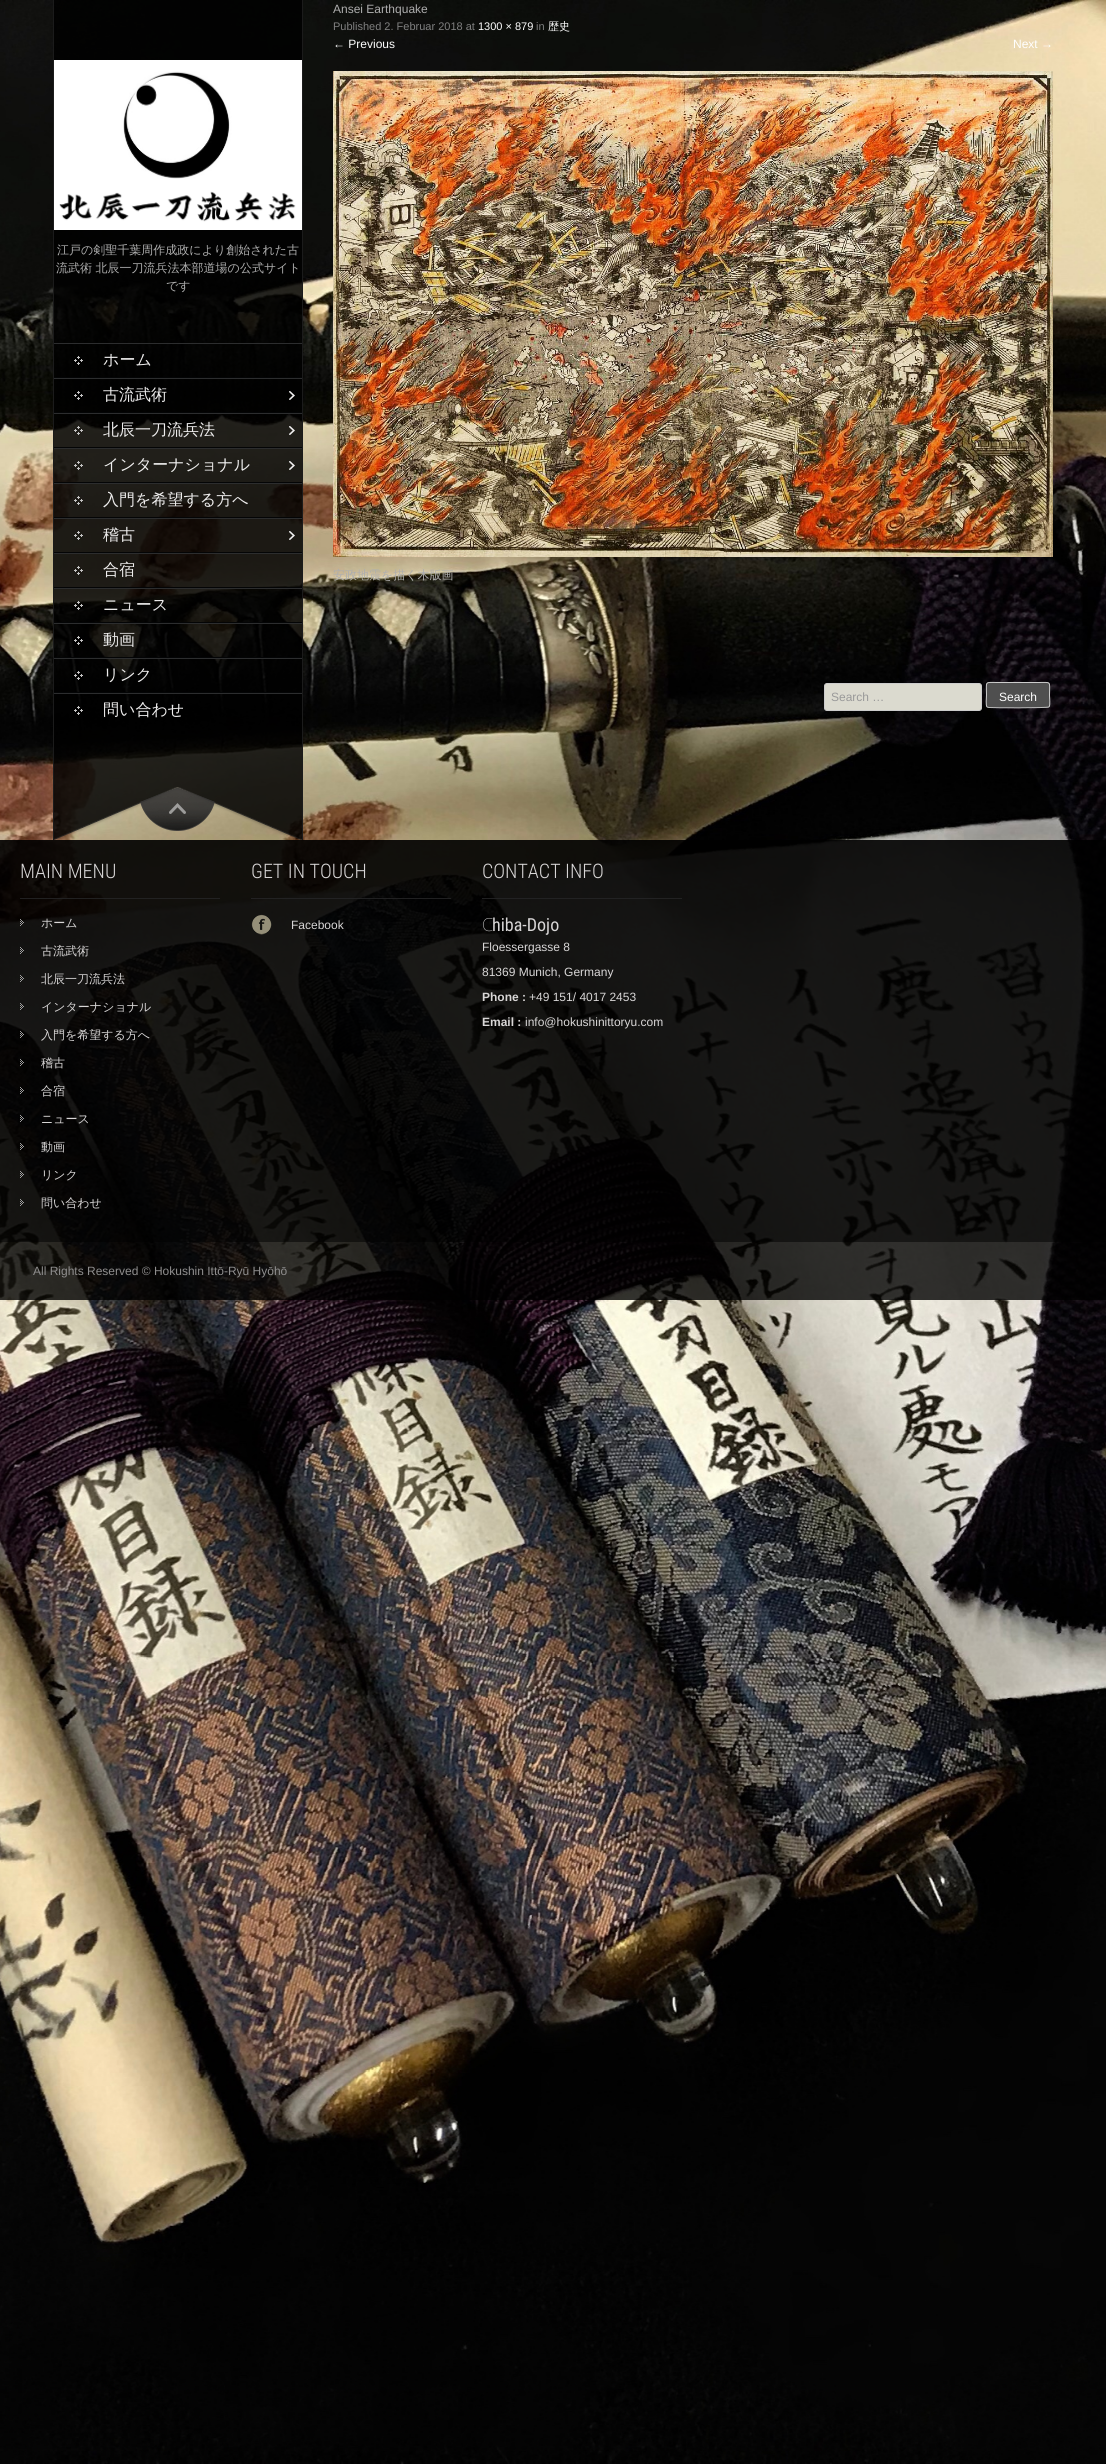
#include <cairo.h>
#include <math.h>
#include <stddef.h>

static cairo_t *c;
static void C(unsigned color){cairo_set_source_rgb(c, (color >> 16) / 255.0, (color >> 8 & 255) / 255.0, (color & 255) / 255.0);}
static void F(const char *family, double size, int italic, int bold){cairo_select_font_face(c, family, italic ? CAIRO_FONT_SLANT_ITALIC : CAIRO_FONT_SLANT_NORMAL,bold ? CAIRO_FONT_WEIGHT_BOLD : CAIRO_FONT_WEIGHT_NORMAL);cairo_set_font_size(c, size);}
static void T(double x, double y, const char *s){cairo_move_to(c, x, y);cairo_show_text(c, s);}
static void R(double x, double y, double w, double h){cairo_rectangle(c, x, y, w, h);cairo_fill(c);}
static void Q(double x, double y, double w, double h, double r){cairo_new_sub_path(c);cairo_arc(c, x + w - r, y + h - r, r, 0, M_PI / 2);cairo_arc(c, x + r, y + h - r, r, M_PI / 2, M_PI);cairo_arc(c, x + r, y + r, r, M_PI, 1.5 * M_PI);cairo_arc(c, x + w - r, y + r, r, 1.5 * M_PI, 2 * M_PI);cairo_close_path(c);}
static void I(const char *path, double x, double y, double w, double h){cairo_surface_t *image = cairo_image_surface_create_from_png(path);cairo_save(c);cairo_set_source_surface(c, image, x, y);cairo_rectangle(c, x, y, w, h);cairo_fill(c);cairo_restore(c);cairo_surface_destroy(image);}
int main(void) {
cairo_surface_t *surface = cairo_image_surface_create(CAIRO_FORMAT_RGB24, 1106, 2464);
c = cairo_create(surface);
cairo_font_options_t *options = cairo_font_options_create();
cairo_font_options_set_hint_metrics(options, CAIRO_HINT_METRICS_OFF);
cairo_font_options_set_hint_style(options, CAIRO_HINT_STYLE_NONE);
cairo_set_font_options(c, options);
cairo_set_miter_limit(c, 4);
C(0xffffff);
cairo_paint(c);
I("1.png",0,0,1106,2464);
C(0x1b1b1b);
R(302,0,1,840);
R(53,0,1,840);
cairo_set_source_rgba(c,0,0,0,0.85);
R(54,0,248,343);
I("2.png",54,60,248,170);
F("WenQuanYi Zen Hei Medium",12,0,0);
C(0xaeaeae);
T(57,254,"江戸の剣聖千葉周作成政により創始された古");
T(56,272,"流武術 北辰一刀流兵法本部道場の公式サイト");
T(166,290,"です");
cairo_set_source_rgba(c,0,0,0,0.85);
R(54,344,248,443);
C(0x2c2d2e);
R(54,343,248,1);
C(0x040506);
R(54,377,248,1);
I("3.png",74,356,9,9);
F("WenQuanYi Zen Hei Medium",16,0,0);
C(0xeeeded);
T(103,365,"ホーム");
I("4.png",289,391,6,9);
C(0x2c2d2e);
R(54,378,248,1);
C(0x040506);
R(54,412,248,1);
I("5.png",74,391,9,9);
C(0xeeeded);
T(103,400,"古流武術");
I("6.png",289,426,6,9);
C(0x2c2d2e);
R(54,413,248,1);
C(0x040506);
R(54,447,248,1);
I("7.png",74,426,9,9);
C(0xeeeded);
T(103,435,"北辰一刀流兵法");
I("8.png",289,461,6,9);
C(0x2c2d2e);
R(54,448,248,1);
C(0x040506);
R(54,482,248,1);
I("9.png",74,461,9,9);
C(0xeeeded);
T(103,470,"インターナショナル");
C(0x2c2d2e);
R(54,483,248,1);
C(0x040506);
R(54,517,248,1);
I("10.png",74,496,9,9);
C(0xeeeded);
T(103,505,"入門を希望する方へ");
I("11.png",289,531,6,9);
C(0x2c2d2e);
R(54,518,248,1);
C(0x040506);
R(54,552,248,1);
I("12.png",74,531,9,9);
C(0xeeeded);
T(103,540,"稽古");
C(0x2c2d2e);
R(54,553,248,1);
C(0x040506);
R(54,587,248,1);
I("13.png",74,566,9,9);
C(0xeeeded);
T(103,575,"合宿");
C(0x2c2d2e);
R(54,588,248,1);
C(0x040506);
R(54,622,248,1);
I("14.png",74,601,9,9);
C(0xeeeded);
T(103,610,"ニュース");
C(0x2c2d2e);
R(54,623,248,1);
C(0x040506);
R(54,657,248,1);
I("15.png",74,636,9,9);
C(0xeeeded);
T(103,645,"動画");
C(0x2c2d2e);
R(54,658,248,1);
C(0x040506);
R(54,692,248,1);
I("16.png",74,671,9,9);
C(0xeeeded);
T(103,680,"リンク");
C(0x2c2d2e);
R(54,693,248,1);
I("17.png",74,706,9,9);
C(0xeeeded);
T(103,715,"問い合わせ");
I("18.png",54,787,248,53);
I("19.png",140,787,75,44);
F("Liberation Sans",12,0,0);
C(0xaeaeae);
T(333,13,"Ansei Earthquake");
F("Liberation Sans",11,0,0);
C(0x808080);
T(333,30,"Published 2. Februar 2018 at");
C(0xffffff);
T(478,30,"1300 × 879");
C(0x808080);
T(536,30,"in");
F("WenQuanYi Zen Hei Medium",11,0,0);
C(0xffffff);
T(548,30,"歴史");
F("Liberation Sans",12,0,0);
T(333,48,"← Previous");
T(1013,48,"Next →");
I("20.png",333,71,720,486);
F("WenQuanYi Zen Hei Medium",12,0,0);
C(0xaeaeae);
T(333,579,"安政地震を描く木版画");
C(0xdbdacf);
Q(824.5,683.5,157,27,2.5);
cairo_fill_preserve(c);
C(0xcccccc);
cairo_set_line_width(c,1);
cairo_stroke(c);
F("Liberation Sans",12,0,0);
C(0x999999);
T(831,701,"Search …");
C(0x4f4f4f);
Q(986,682,64,26,3);
cairo_fill(c);
cairo_new_path(c);
cairo_move_to(c,1049,707);
cairo_line_to(c,1048.5,707);
cairo_curve_to(c,1047.5,708,994,708,989,707.5);
cairo_line_to(c,987,707);
C(0xbbbbbb);
cairo_stroke(c);
cairo_new_path(c);
cairo_move_to(c,987,707);
cairo_curve_to(c,985.5,705,986.5,697.5,986.5,695);
cairo_curve_to(c,986.5,680.5,984,682.5,998.5,682.5);
cairo_line_to(c,1037.5,682.5);
cairo_curve_to(c,1052,682.5,1049.5,680.5,1049.5,695);
cairo_curve_to(c,1049.5,697.5,1050.5,705,1049,707);
C(0xcccccc);
cairo_stroke(c);
C(0xffffff);
T(999,701,"Search");
cairo_set_source_rgba(c,0,0,0,0.9);
R(0,840,1106,402);
cairo_set_source_rgba(c,0.141,0.141,0.145,0.9);
R(20,898,200,1);
F("Roboto Condensed Light",20,0,0);
C(0xd8d6d6);
T(20,878,"MAIN MENU");
I("21.png",20,919,4,7);
F("WenQuanYi Zen Hei Medium",12,0,0);
T(41,927,"ホーム");
I("22.png",20,947,4,7);
T(41,955,"古流武術");
I("23.png",20,975,4,7);
T(41,983,"北辰一刀流兵法");
I("24.png",20,1003,4,7);
T(41,1011,"インターナショナル");
I("25.png",20,1031,4,7);
T(41,1039,"入門を希望する方へ");
I("26.png",20,1059,4,7);
T(41,1067,"稽古");
I("27.png",20,1087,4,7);
T(41,1095,"合宿");
I("28.png",20,1115,4,7);
T(41,1123,"ニュース");
I("29.png",20,1143,4,7);
T(41,1151,"動画");
I("30.png",20,1171,4,7);
T(41,1179,"リンク");
I("31.png",20,1199,4,7);
T(41,1207,"問い合わせ");
cairo_set_source_rgba(c,0.141,0.141,0.145,0.9);
R(251,898,200,1);
F("Roboto Condensed Light",20,0,0);
C(0xd8d6d6);
T(251,878,"GET IN TOUCH");
I("32.png",251,914,21,21);
F("Liberation Sans",12,0,0);
T(291,929,"Facebook");
cairo_set_source_rgba(c,0.141,0.141,0.145,0.9);
R(482,898,200,1);
F("Roboto Condensed Light",20,0,0);
C(0xd8d6d6);
T(482,878,"CONTACT INFO");
F("Noto Sans Thin",18,0,0);
C(0xe6e6e6);
T(482,931,"C");
F("Roboto Condensed",18,0,0);
C(0xd8d6d6);
T(492,931,"hiba-Dojo");
F("Liberation Sans",12,0,0);
T(482,951,"Floessergasse 8");
T(482,976,"81369 Munich, Germany");
F("Liberation Sans",12,0,1);
T(482,1001,"Phone :");
F("Liberation Sans",12,0,0);
T(529,1001,"+49 151/ 4017 2453");
F("Liberation Sans",12,0,1);
T(482,1026,"Email :");
F("Liberation Sans",12,0,0);
T(525,1026,"info@hokushinittoryu.com");
cairo_set_source_rgba(c,0,0,0,0.8);
R(0,1242,1106,58);
C(0x8f8e8e);
T(33,1275,"All Rights Reserved © Hokushin Ittō-Ryū Hyōhō");
cairo_surface_write_to_png(surface, "o.png");
cairo_font_options_destroy(options);
cairo_destroy(c);
cairo_surface_destroy(surface);
return 0;
}
